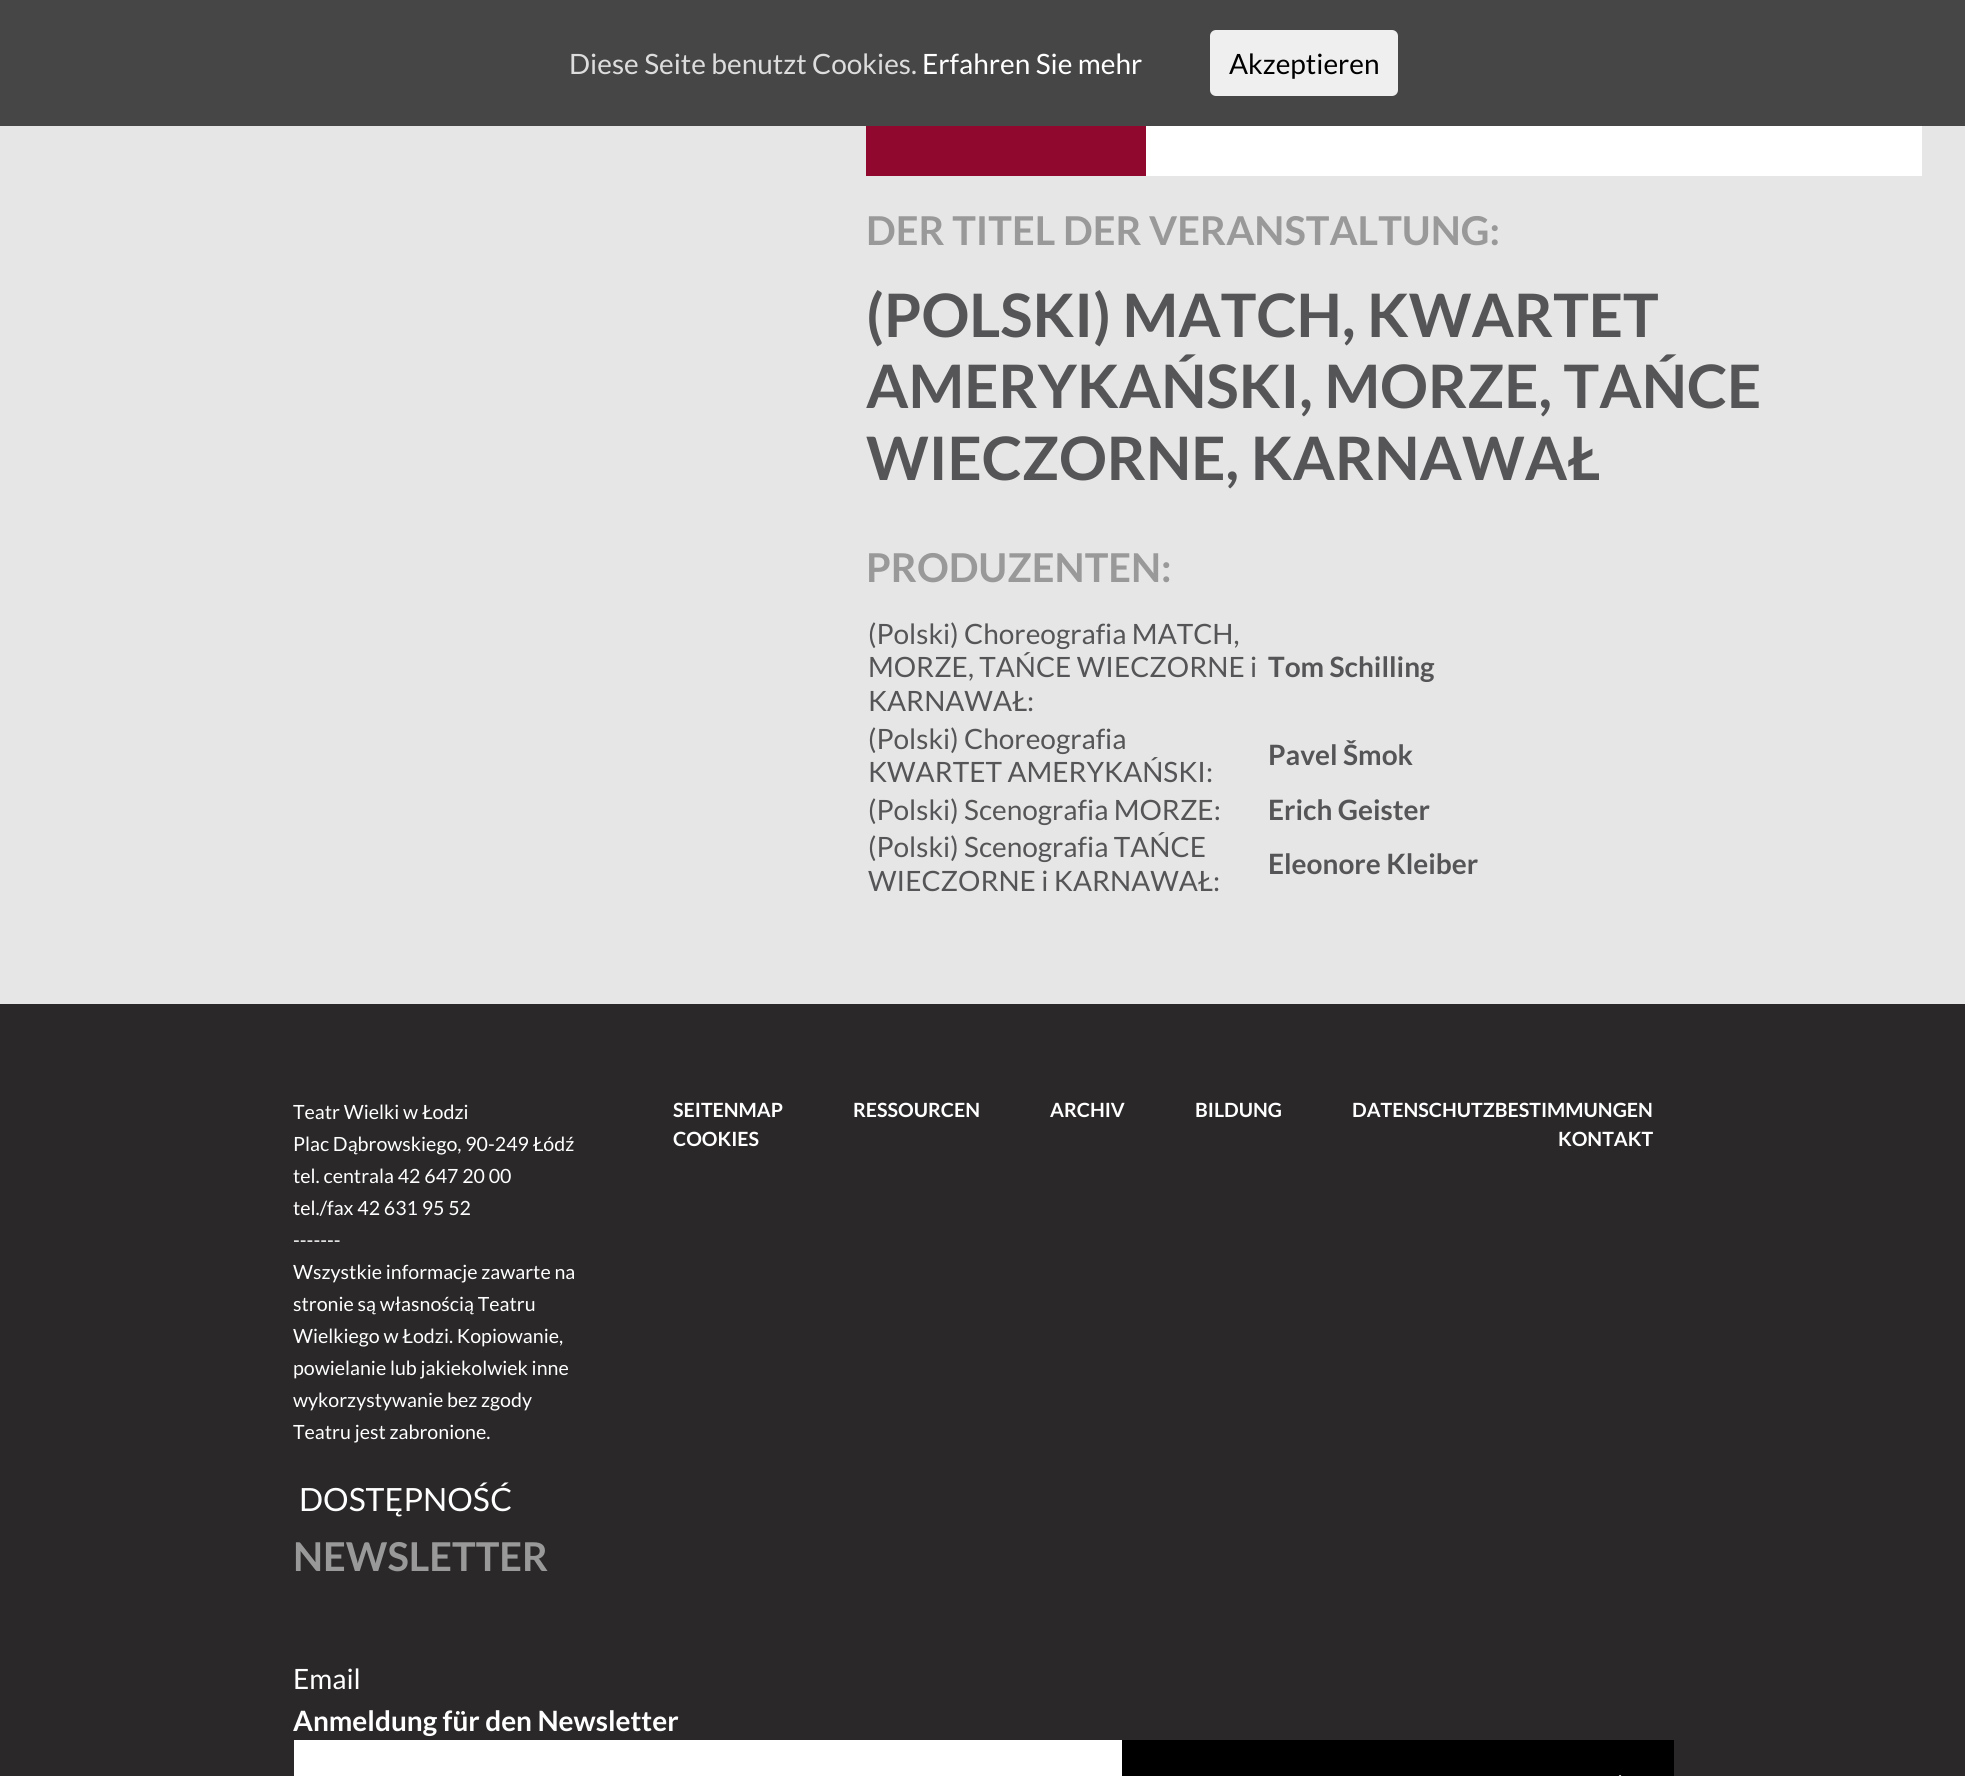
#include <cairo.h>
#include <math.h>
#include <stddef.h>

static cairo_t *c;
static void C(unsigned color){cairo_set_source_rgb(c, (color >> 16) / 255.0, (color >> 8 & 255) / 255.0, (color & 255) / 255.0);}
static void F(const char *family, double size, int italic, int bold){cairo_select_font_face(c, family, italic ? CAIRO_FONT_SLANT_ITALIC : CAIRO_FONT_SLANT_NORMAL,bold ? CAIRO_FONT_WEIGHT_BOLD : CAIRO_FONT_WEIGHT_NORMAL);cairo_set_font_size(c, size);}
static void T(double x, double y, const char *s){cairo_move_to(c, x, y);cairo_show_text(c, s);}
static void R(double x, double y, double w, double h){cairo_rectangle(c, x, y, w, h);cairo_fill(c);}
static void Q(double x, double y, double w, double h, double r){cairo_new_sub_path(c);cairo_arc(c, x + w - r, y + h - r, r, 0, M_PI / 2);cairo_arc(c, x + r, y + h - r, r, M_PI / 2, M_PI);cairo_arc(c, x + r, y + r, r, M_PI, 1.5 * M_PI);cairo_arc(c, x + w - r, y + r, r, 1.5 * M_PI, 2 * M_PI);cairo_close_path(c);}
static void I(const char *path, double x, double y, double w, double h){cairo_surface_t *image = cairo_image_surface_create_from_png(path);cairo_save(c);cairo_set_source_surface(c, image, x, y);cairo_rectangle(c, x, y, w, h);cairo_fill(c);cairo_restore(c);cairo_surface_destroy(image);}
int main(void) {
cairo_surface_t *surface = cairo_image_surface_create(CAIRO_FORMAT_RGB24, 1965, 1776);
c = cairo_create(surface);
cairo_font_options_t *options = cairo_font_options_create();
cairo_font_options_set_hint_metrics(options, CAIRO_HINT_METRICS_OFF);
cairo_font_options_set_hint_style(options, CAIRO_HINT_STYLE_NONE);
cairo_set_font_options(c, options);
cairo_set_miter_limit(c, 4);
C(0xe6e6e6);
cairo_paint(c);
C(0x464646);
R(0,0,1965,126);
F("Lato",28,0,0);
C(0xdddddd);
T(569,74,"Diese Seite benutzt Cookies.");
C(0xffffff);
T(922,74,"Erfahren Sie mehr");
C(0xefefef);
Q(1210,30,188,66,6);
cairo_fill(c);
C(0x000000);
T(1229,74,"Akzeptieren");
C(0x90082d);
R(866,126,280,50);
C(0xffffff);
R(1146,126,776,50);
F("Lato",39.75,0,1);
C(0x999999);
T(866,245,"DER TITEL DER VERANSTALTUNG:");
F("Lato",59.9,0,1);
C(0x555557);
T(866,337,"(POLSKI) MATCH, KWARTET");
T(866,408,"AMERYKAŃSKI, MORZE, TAŃCE");
T(866,480,"WIECZORNE, KARNAWAŁ");
F("Lato",39.75,0,1);
C(0x999999);
T(866,582,"PRODUZENTEN:");
F("Lato",28,0,0);
C(0x555557);
T(868,644,"(Polski) Choreografia MATCH,");
T(868,677,"MORZE, TAŃCE WIECZORNE i");
T(868,711,"KARNAWAŁ:");
F("Lato",28,0,1);
T(1268,677,"Tom Schilling");
F("Lato",28,0,0);
T(868,749,"(Polski) Choreografia");
T(868,782,"KWARTET AMERYKAŃSKI:");
F("Lato",28,0,1);
T(1268,765,"Pavel Šmok");
F("Lato",28,0,0);
T(868,820,"(Polski) Scenografia MORZE:");
F("Lato",28,0,1);
T(1268,820,"Erich Geister");
F("Lato",28,0,0);
T(868,857,"(Polski) Scenografia TAŃCE");
T(868,891,"WIECZORNE i KARNAWAŁ:");
F("Lato",28,0,1);
T(1268,874,"Eleonore Kleiber");
C(0x2a2829);
R(0,1004,1965,772);
F("Lato",19.6,0,0);
C(0xffffff);
T(293,1119,"Teatr Wielki w Łodzi");
T(293,1151,"Plac Dąbrowskiego, 90-249 Łódź");
T(293,1183,"tel. centrala 42 647 20 00");
T(293,1215,"tel./fax 42 631 95 52");
T(293,1247,"-------");
T(293,1279,"Wszystkie informacje zawarte na");
T(293,1311,"stronie są własnością Teatru");
T(293,1343,"Wielkiego w Łodzi. Kopiowanie,");
T(293,1375,"powielanie lub jakiekolwiek inne");
T(293,1407,"wykorzystywanie bez zgody");
T(293,1439,"Teatru jest zabronione.");
F("Lato",32,0,0);
T(299,1511,"DOSTĘPNOŚĆ");
F("Lato",19.6,0,1);
T(673,1117,"SEITENMAP");
T(853,1117,"RESSOURCEN");
T(1050,1117,"ARCHIV");
T(1195,1117,"BILDUNG");
T(1352,1117,"DATENSCHUTZBESTIMMUNGEN");
T(673,1146,"COOKIES");
T(1558,1146,"KONTAKT");
F("Lato",39.75,0,1);
C(0x999999);
T(293,1571,"NEWSLETTER");
F("Lato",28,0,0);
C(0xffffff);
T(293,1689,"Email");
F("Lato",28,0,1);
T(293,1731,"Anmeldung für den Newsletter");
R(294,1740,828,36);
C(0x000000);
R(1122,1740,552,36);
I("1.png",1618,1775,4,1);
cairo_surface_write_to_png(surface, "o.png");
cairo_font_options_destroy(options);
cairo_destroy(c);
cairo_surface_destroy(surface);
return 0;
}
